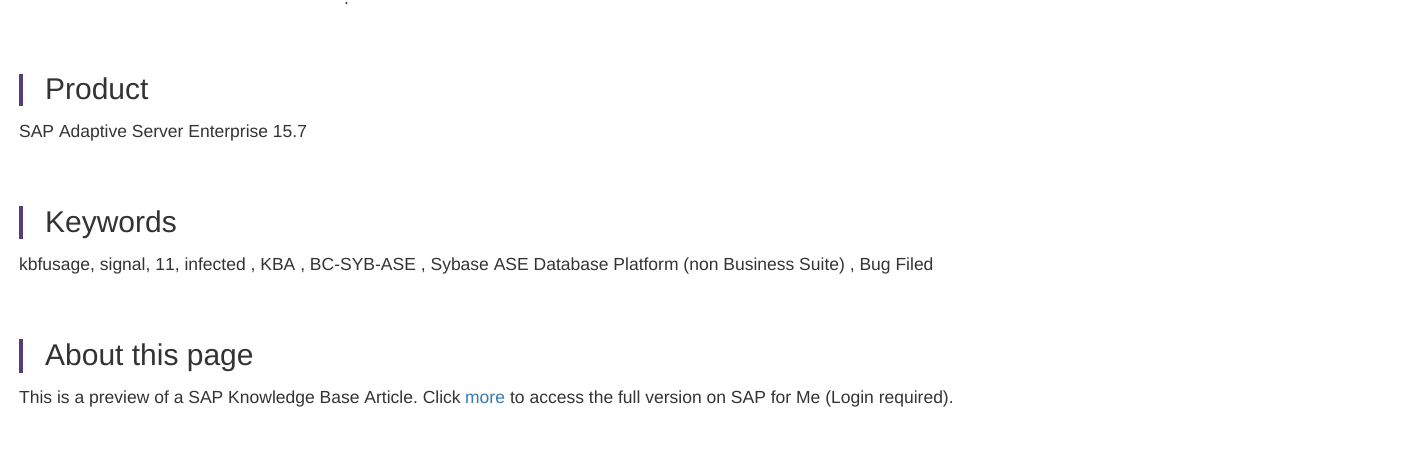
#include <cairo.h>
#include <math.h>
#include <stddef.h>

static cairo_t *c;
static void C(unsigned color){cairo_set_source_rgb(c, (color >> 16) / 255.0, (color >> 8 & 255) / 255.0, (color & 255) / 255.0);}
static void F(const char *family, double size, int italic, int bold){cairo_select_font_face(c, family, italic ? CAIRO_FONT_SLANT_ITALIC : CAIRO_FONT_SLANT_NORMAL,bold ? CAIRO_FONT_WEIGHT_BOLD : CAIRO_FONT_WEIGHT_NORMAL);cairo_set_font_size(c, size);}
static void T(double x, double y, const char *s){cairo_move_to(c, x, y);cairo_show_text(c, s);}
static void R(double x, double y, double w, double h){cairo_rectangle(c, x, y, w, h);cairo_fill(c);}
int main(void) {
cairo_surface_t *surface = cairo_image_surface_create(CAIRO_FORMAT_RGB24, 1416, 451);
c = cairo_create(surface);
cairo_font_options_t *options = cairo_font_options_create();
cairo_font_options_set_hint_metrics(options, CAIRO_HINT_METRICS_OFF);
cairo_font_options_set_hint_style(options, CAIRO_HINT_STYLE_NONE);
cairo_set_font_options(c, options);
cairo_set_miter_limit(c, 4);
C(0xffffff);
cairo_paint(c);
F("Liberation Sans",17.5,0,0);
C(0x333333);
T(344,4,".");
C(0x563d7c);
R(19,74,4,32);
F("Liberation Sans",30,0,0);
C(0x333333);
T(45,99,"Product");
F("Liberation Sans",17.5,0,0);
T(19,137,"SAP Adaptive Server Enterprise 15.7");
C(0x563d7c);
R(19,206,4,33);
F("Liberation Sans",30,0,0);
C(0x333333);
T(45,232,"Keywords");
F("Liberation Sans",17.5,0,0);
T(19,270,"kbfusage, signal, 11, infected , KBA , BC-SYB-ASE , Sybase ASE Database Platform (non Business Suite) , Bug Filed");
C(0x563d7c);
R(19,339,4,34);
F("Liberation Sans",30,0,0);
C(0x333333);
T(45,365,"About this page");
F("Liberation Sans",17.5,0,0);
T(19,403,"This is a preview of a SAP Knowledge Base Article. Click");
C(0x337ab7);
T(465,403,"more");
C(0x333333);
T(510,403,"to access the full version on SAP for Me (Login required).");
cairo_surface_write_to_png(surface, "o.png");
cairo_font_options_destroy(options);
cairo_destroy(c);
cairo_surface_destroy(surface);
return 0;
}
